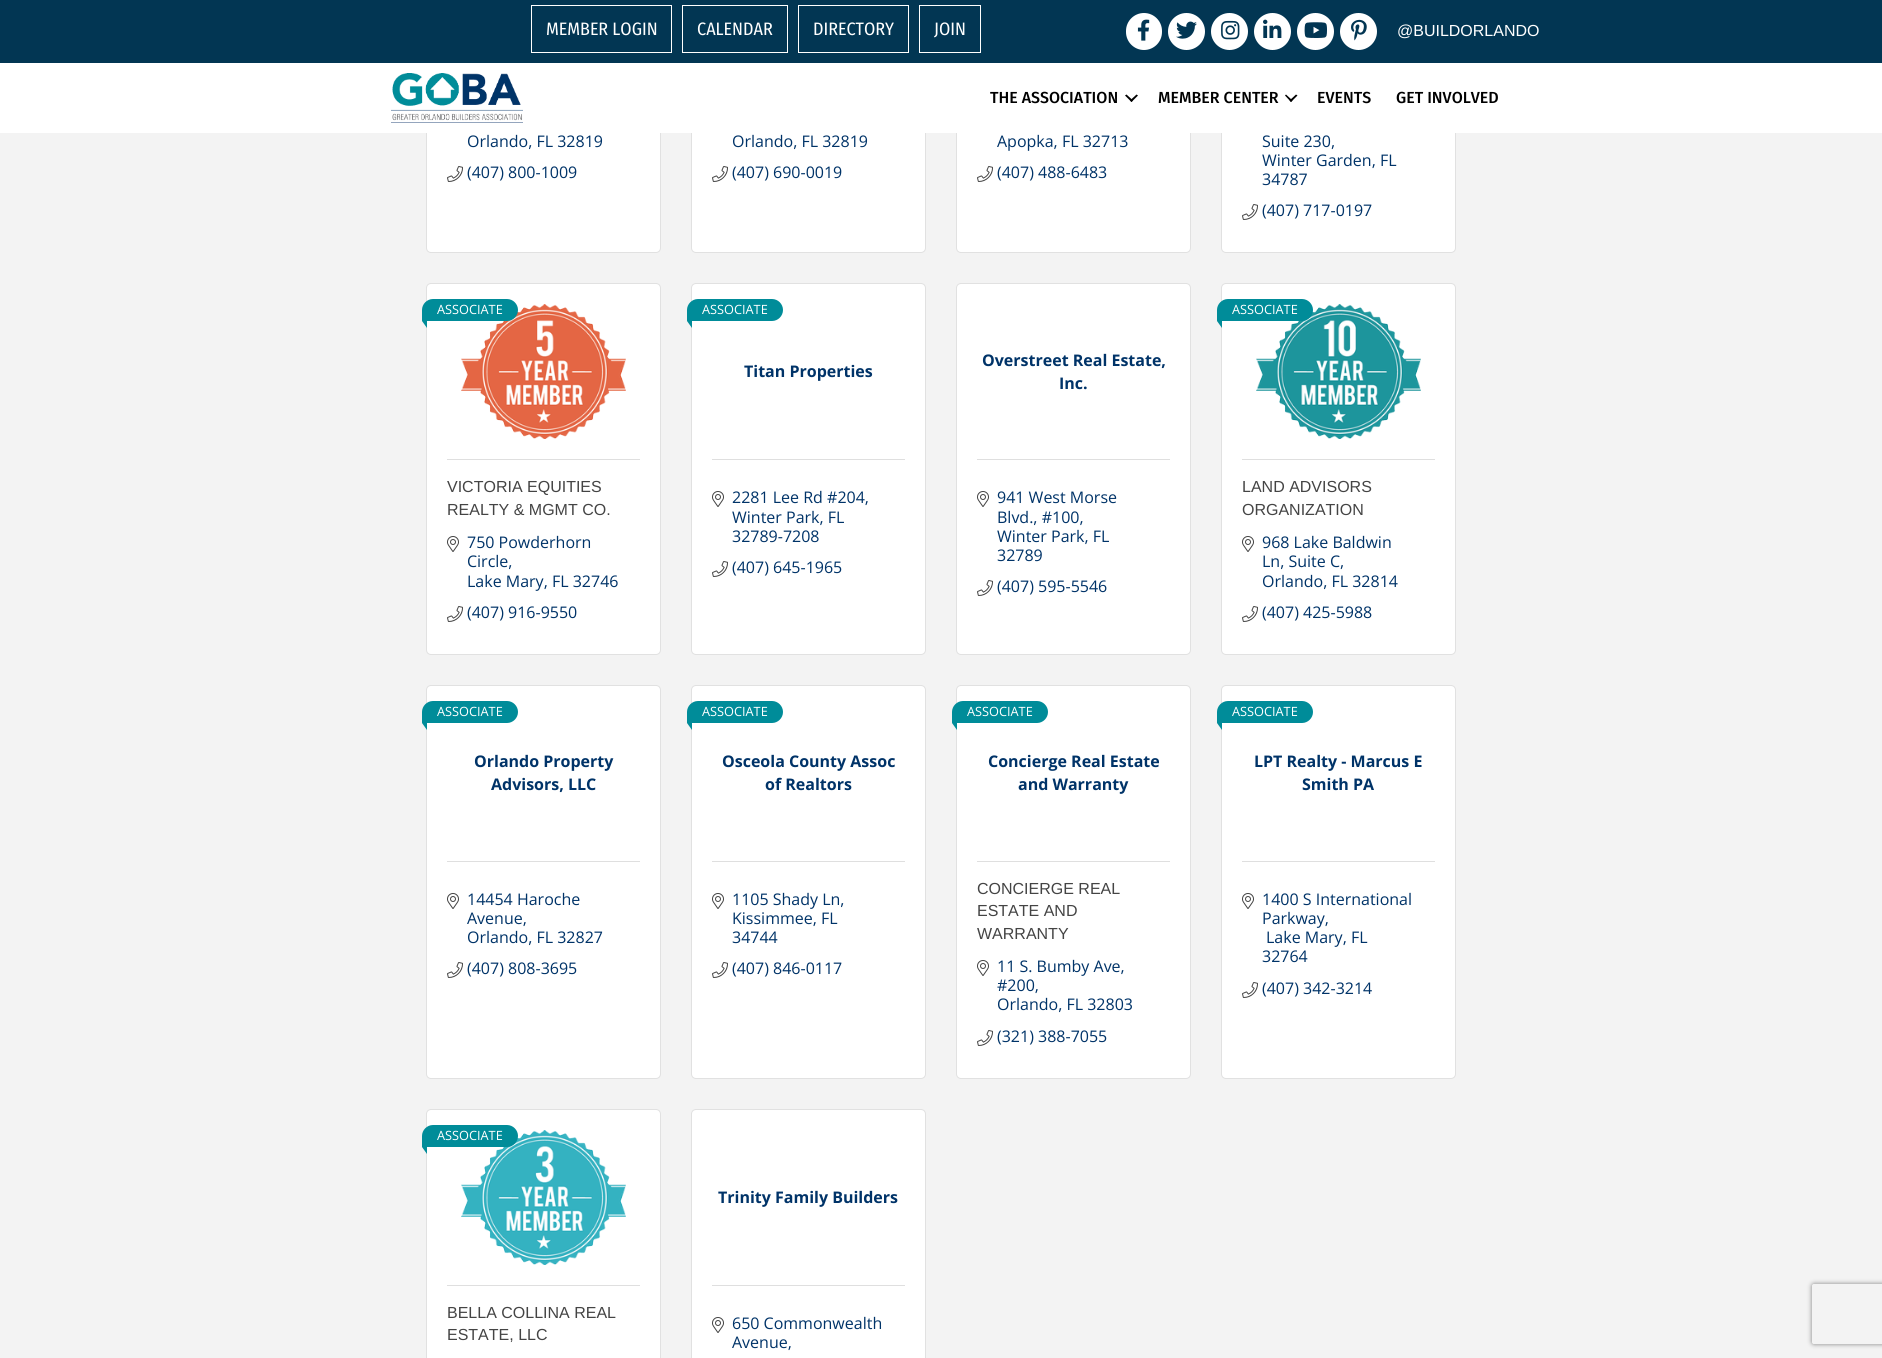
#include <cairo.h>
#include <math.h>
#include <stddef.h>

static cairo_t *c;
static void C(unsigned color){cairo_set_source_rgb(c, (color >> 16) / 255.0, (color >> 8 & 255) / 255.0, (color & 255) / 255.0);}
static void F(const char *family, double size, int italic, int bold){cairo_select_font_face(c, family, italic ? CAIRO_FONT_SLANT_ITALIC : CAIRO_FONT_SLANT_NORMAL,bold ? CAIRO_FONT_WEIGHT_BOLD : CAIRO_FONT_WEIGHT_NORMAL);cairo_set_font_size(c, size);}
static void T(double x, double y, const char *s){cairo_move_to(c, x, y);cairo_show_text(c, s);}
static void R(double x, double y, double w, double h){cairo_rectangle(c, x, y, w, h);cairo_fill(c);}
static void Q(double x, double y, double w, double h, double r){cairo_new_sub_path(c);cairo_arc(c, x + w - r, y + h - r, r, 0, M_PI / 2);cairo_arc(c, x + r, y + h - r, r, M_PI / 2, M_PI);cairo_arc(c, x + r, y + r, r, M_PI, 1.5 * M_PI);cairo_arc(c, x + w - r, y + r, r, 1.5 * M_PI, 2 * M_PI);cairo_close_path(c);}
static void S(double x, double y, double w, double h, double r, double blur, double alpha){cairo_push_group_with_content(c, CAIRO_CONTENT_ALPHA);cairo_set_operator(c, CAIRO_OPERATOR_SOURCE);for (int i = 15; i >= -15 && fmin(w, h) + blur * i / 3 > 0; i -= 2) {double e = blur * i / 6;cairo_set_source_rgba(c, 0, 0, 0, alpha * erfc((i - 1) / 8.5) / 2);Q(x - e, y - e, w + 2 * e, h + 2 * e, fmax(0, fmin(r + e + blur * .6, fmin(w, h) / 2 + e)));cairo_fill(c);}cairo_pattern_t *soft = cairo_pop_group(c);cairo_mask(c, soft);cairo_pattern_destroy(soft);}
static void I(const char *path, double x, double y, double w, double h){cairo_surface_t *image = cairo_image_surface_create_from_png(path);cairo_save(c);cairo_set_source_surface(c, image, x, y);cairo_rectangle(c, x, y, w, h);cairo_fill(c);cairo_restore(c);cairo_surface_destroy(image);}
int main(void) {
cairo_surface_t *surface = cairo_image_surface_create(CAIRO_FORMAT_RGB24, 1882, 1358);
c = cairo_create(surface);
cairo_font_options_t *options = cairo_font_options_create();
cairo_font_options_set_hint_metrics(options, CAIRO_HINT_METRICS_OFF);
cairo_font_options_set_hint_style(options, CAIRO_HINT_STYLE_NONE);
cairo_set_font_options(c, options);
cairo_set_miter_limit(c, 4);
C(0xf3f3f3);
cairo_paint(c);
C(0xffffff);
Q(426,-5,235,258,5);
cairo_fill(c);
Q(426.5,-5.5,234,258,4.5);
cairo_set_source_rgba(c,0,0,0,0.12);
cairo_set_line_width(c,1);
cairo_stroke(c);
C(0xffffff);
Q(691,-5,235,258,5);
cairo_fill(c);
Q(691.5,-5.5,234,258,4.5);
cairo_set_source_rgba(c,0,0,0,0.12);
cairo_stroke(c);
C(0xffffff);
Q(956,-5,235,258,5);
cairo_fill(c);
Q(956.5,-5.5,234,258,4.5);
cairo_set_source_rgba(c,0,0,0,0.12);
cairo_stroke(c);
C(0xffffff);
Q(1221,-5,235,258,5);
cairo_fill(c);
Q(1221.5,-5.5,234,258,4.5);
cairo_set_source_rgba(c,0,0,0,0.12);
cairo_stroke(c);
C(0x023653);
R(0,0,1882,63);
cairo_rectangle(c,531.5,5.5,140,47);
C(0xffffff);
cairo_stroke(c);
F("Fira Sans Condensed",18,0,0);
T(546,35,"MEMBER LOGIN");
cairo_rectangle(c,682.5,5.5,105,47);
cairo_stroke(c);
T(697,35,"CALENDAR");
cairo_rectangle(c,798.5,5.5,110,47);
cairo_stroke(c);
T(813,35,"DIRECTORY");
cairo_rectangle(c,919.5,5.5,61,47);
cairo_stroke(c);
T(934,35,"JOIN");
Q(1126,13,36,37,18);
cairo_fill(c);
I("1.png",1137,19,13,22);
cairo_arc(c,1186.5,31.5,18.5,0,2 * M_PI);
cairo_fill(c);
I("2.png",1176,21,21,18);
cairo_arc(c,1229.5,31.5,18.5,0,2 * M_PI);
cairo_fill(c);
I("3.png",1221,20,19,20);
cairo_arc(c,1272.5,31.5,18.5,0,2 * M_PI);
cairo_fill(c);
I("4.png",1263,19,19,19);
cairo_arc(c,1315.5,31.5,18.5,0,2 * M_PI);
cairo_fill(c);
I("5.png",1304,22,23,16);
cairo_arc(c,1358.5,31.5,18.5,0,2 * M_PI);
cairo_fill(c);
I("6.png",1351,19,16,22);
F("Liberation Sans",16,0,0);
T(1397,36,"@BUILDORLANDO");
R(0,63,1882,70);
I("7.png",391,73,132,50);
F("Fira Sans Medium",16,0,0);
C(0x000000);
T(990,103,"THE ASSOCIATION");
cairo_new_path(c);
cairo_move_to(c,1136.5,94.5);
cairo_line_to(c,1138,95.5);
cairo_line_to(c,1131.5,102);
cairo_line_to(c,1130,100.5);
cairo_close_path(c);
cairo_fill(c);
cairo_new_path(c);
cairo_move_to(c,1126.5,94.5);
cairo_line_to(c,1133,100.5);
cairo_line_to(c,1131.5,102);
cairo_line_to(c,1125,95.5);
cairo_close_path(c);
cairo_fill(c);
T(1158,103,"MEMBER CENTER");
cairo_new_path(c);
cairo_move_to(c,1296,94.5);
cairo_line_to(c,1297.5,95.5);
cairo_line_to(c,1291,102);
cairo_line_to(c,1289.5,100.5);
cairo_close_path(c);
cairo_fill(c);
cairo_new_path(c);
cairo_move_to(c,1286,94.5);
cairo_line_to(c,1292.5,100.5);
cairo_line_to(c,1291,102);
cairo_line_to(c,1285,95.5);
cairo_close_path(c);
cairo_fill(c);
T(1317,103,"EVENTS");
T(1396,103,"GET INVOLVED");
F("Open Sans",16,0,0);
C(0x003368);
T(467,147,"Orlando, FL 32819");
I("8.png",447,166,16,16);
T(467,178,"(407) 800-1009");
T(732,147,"Orlando, FL 32819");
I("8.png",712,166,16,16);
T(732,178,"(407) 690-0019");
T(997,147,"Apopka, FL 32713");
I("8.png",977,166,16,16);
T(997,178,"(407) 488-6483");
T(1262,147,"Suite 230,");
T(1262,166,"Winter Garden, FL");
T(1262,185,"34787");
I("8.png",1242,204,16,16);
T(1262,216,"(407) 717-0197");
C(0xffffff);
Q(426,283,235,372,5);
cairo_fill(c);
Q(426.5,283.5,234,371,4.5);
cairo_set_source_rgba(c,0,0,0,0.12);
cairo_stroke(c);
I("9.png",461,304,165,135);
C(0x008c99);
cairo_new_path(c);
cairo_move_to(c,433,299);
cairo_line_to(c,507,299);
cairo_curve_to(c,513,299,518,304,518,310);
cairo_curve_to(c,518,316,513,321,507,321);
cairo_line_to(c,422.5,321);
cairo_curve_to(c,422,321,422,321,422,320.5);
cairo_line_to(c,422,310);
cairo_curve_to(c,422,304,427,299,433,299);
cairo_close_path(c);
cairo_fill(c);
F("Open Sans",12.75,0,0);
C(0xffffff);
T(437,314,"ASSOCIATE");
C(0x008c99);
cairo_new_path(c);
cairo_move_to(c,427,314);
cairo_line_to(c,427,328);
cairo_line_to(c,422,321);
cairo_close_path(c);
cairo_fill(c);
C(0xdfdfdf);
R(447,459,193,1);
F("Liberation Sans",16,0,0);
C(0x444444);
T(447,492,"VICTORIA EQUITIES");
T(447,515,"REALTY & MGMT CO.");
I("10.png",447,536,12,16);
F("Open Sans",16,0,0);
C(0x003368);
T(467,548,"750 Powderhorn");
T(467,567,"Circle,");
T(467,587,"Lake Mary, FL 32746");
I("8.png",447,606,16,16);
T(467,618,"(407) 916-9550");
C(0xffffff);
Q(691,283,235,372,5);
cairo_fill(c);
Q(691.5,283.5,234,371,4.5);
cairo_set_source_rgba(c,0,0,0,0.12);
cairo_stroke(c);
C(0x008c99);
cairo_new_path(c);
cairo_move_to(c,698,299);
cairo_line_to(c,772,299);
cairo_curve_to(c,778,299,783,304,783,310);
cairo_curve_to(c,783,316,778,321,772,321);
cairo_line_to(c,687.5,321);
cairo_curve_to(c,687,321,687,321,687,320.5);
cairo_line_to(c,687,310);
cairo_curve_to(c,687,304,692,299,698,299);
cairo_close_path(c);
cairo_fill(c);
F("Open Sans",12.75,0,0);
C(0xffffff);
T(702,314,"ASSOCIATE");
C(0x008c99);
cairo_new_path(c);
cairo_move_to(c,692,314);
cairo_line_to(c,692,328);
cairo_line_to(c,687,321);
cairo_close_path(c);
cairo_fill(c);
F("Open Sans",16,0,1);
C(0x003368);
T(744,377,"Titan Properties");
C(0xdfdfdf);
R(712,459,193,1);
I("10.png",712,491,12,16);
F("Open Sans",16,0,0);
C(0x003368);
T(732,503,"2281 Lee Rd #204,");
T(732,523,"Winter Park, FL");
T(732,542,"32789-7208");
I("8.png",712,561,16,16);
T(732,573,"(407) 645-1965");
C(0xffffff);
Q(956,283,235,372,5);
cairo_fill(c);
Q(956.5,283.5,234,371,4.5);
cairo_set_source_rgba(c,0,0,0,0.12);
cairo_stroke(c);
F("Open Sans",16,0,1);
C(0x003368);
T(982,366,"Overstreet Real Estate,");
T(1059,389,"Inc.");
C(0xdfdfdf);
R(977,459,193,1);
I("10.png",977,491,12,16);
F("Open Sans",16,0,0);
C(0x003368);
T(997,503,"941 West Morse");
T(997,523,"Blvd., #100,");
T(997,542,"Winter Park, FL");
T(997,561,"32789");
I("8.png",977,580,16,16);
T(997,592,"(407) 595-5546");
C(0xffffff);
Q(1221,283,235,372,5);
cairo_fill(c);
Q(1221.5,283.5,234,371,4.5);
cairo_set_source_rgba(c,0,0,0,0.12);
cairo_stroke(c);
I("11.png",1256,304,165,135);
C(0x008c99);
cairo_new_path(c);
cairo_move_to(c,1228,299);
cairo_line_to(c,1302,299);
cairo_curve_to(c,1308,299,1313,304,1313,310);
cairo_curve_to(c,1313,316,1308,321,1302,321);
cairo_line_to(c,1217.5,321);
cairo_curve_to(c,1217,321,1217,321,1217,320.5);
cairo_line_to(c,1217,310);
cairo_curve_to(c,1217,304,1222,299,1228,299);
cairo_close_path(c);
cairo_fill(c);
F("Open Sans",12.75,0,0);
C(0xffffff);
T(1232,314,"ASSOCIATE");
C(0x008c99);
cairo_new_path(c);
cairo_move_to(c,1222,314);
cairo_line_to(c,1222,328);
cairo_line_to(c,1217,321);
cairo_close_path(c);
cairo_fill(c);
C(0xdfdfdf);
R(1242,459,193,1);
F("Liberation Sans",16,0,0);
C(0x444444);
T(1242,492,"LAND ADVISORS");
T(1242,515,"ORGANIZATION");
I("10.png",1242,536,12,16);
F("Open Sans",16,0,0);
C(0x003368);
T(1262,548,"968 Lake Baldwin");
T(1262,567,"Ln, Suite C,");
T(1262,587,"Orlando, FL 32814");
I("8.png",1242,606,16,16);
T(1262,618,"(407) 425-5988");
C(0xffffff);
Q(426,685,235,394,5);
cairo_fill(c);
Q(426.5,685.5,234,393,4.5);
cairo_set_source_rgba(c,0,0,0,0.12);
cairo_stroke(c);
C(0x008c99);
cairo_new_path(c);
cairo_move_to(c,433,701);
cairo_line_to(c,507,701);
cairo_curve_to(c,513,701,518,706,518,712);
cairo_curve_to(c,518,718,513,723,507,723);
cairo_line_to(c,422.5,723);
cairo_curve_to(c,422,723,422,723,422,722.5);
cairo_line_to(c,422,712);
cairo_curve_to(c,422,706,427,701,433,701);
cairo_close_path(c);
cairo_fill(c);
F("Open Sans",12.75,0,0);
C(0xffffff);
T(437,716,"ASSOCIATE");
C(0x008c99);
cairo_new_path(c);
cairo_move_to(c,427,716);
cairo_line_to(c,427,730);
cairo_line_to(c,422,723);
cairo_close_path(c);
cairo_fill(c);
F("Open Sans",16,0,1);
C(0x003368);
T(474,767,"Orlando Property");
T(491,790,"Advisors, LLC");
C(0xdfdfdf);
R(447,861,193,1);
I("10.png",447,893,12,16);
F("Open Sans",16,0,0);
C(0x003368);
T(467,905,"14454 Haroche");
T(467,924,"Avenue,");
T(467,943,"Orlando, FL 32827");
I("8.png",447,962,16,16);
T(467,974,"(407) 808-3695");
C(0xffffff);
Q(691,685,235,394,5);
cairo_fill(c);
Q(691.5,685.5,234,393,4.5);
cairo_set_source_rgba(c,0,0,0,0.12);
cairo_stroke(c);
C(0x008c99);
cairo_new_path(c);
cairo_move_to(c,698,701);
cairo_line_to(c,772,701);
cairo_curve_to(c,778,701,783,706,783,712);
cairo_curve_to(c,783,718,778,723,772,723);
cairo_line_to(c,687.5,723);
cairo_curve_to(c,687,723,687,723,687,722.5);
cairo_line_to(c,687,712);
cairo_curve_to(c,687,706,692,701,698,701);
cairo_close_path(c);
cairo_fill(c);
F("Open Sans",12.75,0,0);
C(0xffffff);
T(702,716,"ASSOCIATE");
C(0x008c99);
cairo_new_path(c);
cairo_move_to(c,692,716);
cairo_line_to(c,692,730);
cairo_line_to(c,687,723);
cairo_close_path(c);
cairo_fill(c);
F("Open Sans",16,0,1);
C(0x003368);
T(722,767,"Osceola County Assoc");
T(765,790,"of Realtors");
C(0xdfdfdf);
R(712,861,193,1);
I("10.png",712,893,12,16);
F("Open Sans",16,0,0);
C(0x003368);
T(732,905,"1105 Shady Ln,");
T(732,924,"Kissimmee, FL");
T(732,943,"34744");
I("8.png",712,962,16,16);
T(732,974,"(407) 846-0117");
C(0xffffff);
Q(956,685,235,394,5);
cairo_fill(c);
Q(956.5,685.5,234,393,4.5);
cairo_set_source_rgba(c,0,0,0,0.12);
cairo_stroke(c);
C(0x008c99);
cairo_new_path(c);
cairo_move_to(c,963,701);
cairo_line_to(c,1037,701);
cairo_curve_to(c,1043,701,1048,706,1048,712);
cairo_curve_to(c,1048,718,1043,723,1037,723);
cairo_line_to(c,952.5,723);
cairo_curve_to(c,952,723,952,723,952,722.5);
cairo_line_to(c,952,712);
cairo_curve_to(c,952,706,957,701,963,701);
cairo_close_path(c);
cairo_fill(c);
F("Open Sans",12.75,0,0);
C(0xffffff);
T(967,716,"ASSOCIATE");
C(0x008c99);
cairo_new_path(c);
cairo_move_to(c,957,716);
cairo_line_to(c,957,730);
cairo_line_to(c,952,723);
cairo_close_path(c);
cairo_fill(c);
F("Open Sans",16,0,1);
C(0x003368);
T(988,767,"Concierge Real Estate");
T(1018,790,"and Warranty");
C(0xdfdfdf);
R(977,861,193,1);
F("Liberation Sans",16,0,0);
C(0x444444);
T(977,894,"CONCIERGE REAL");
T(977,916,"ESTATE AND");
T(977,939,"WARRANTY");
I("10.png",977,960,12,16);
F("Open Sans",16,0,0);
C(0x003368);
T(997,972,"11 S. Bumby Ave,");
T(997,991,"#200,");
T(997,1010,"Orlando, FL 32803");
I("8.png",977,1030,16,16);
T(997,1042,"(321) 388-7055");
C(0xffffff);
Q(1221,685,235,394,5);
cairo_fill(c);
Q(1221.5,685.5,234,393,4.5);
cairo_set_source_rgba(c,0,0,0,0.12);
cairo_stroke(c);
C(0x008c99);
cairo_new_path(c);
cairo_move_to(c,1228,701);
cairo_line_to(c,1302,701);
cairo_curve_to(c,1308,701,1313,706,1313,712);
cairo_curve_to(c,1313,718,1308,723,1302,723);
cairo_line_to(c,1217.5,723);
cairo_curve_to(c,1217,723,1217,723,1217,722.5);
cairo_line_to(c,1217,712);
cairo_curve_to(c,1217,706,1222,701,1228,701);
cairo_close_path(c);
cairo_fill(c);
F("Open Sans",12.75,0,0);
C(0xffffff);
T(1232,716,"ASSOCIATE");
C(0x008c99);
cairo_new_path(c);
cairo_move_to(c,1222,716);
cairo_line_to(c,1222,730);
cairo_line_to(c,1217,723);
cairo_close_path(c);
cairo_fill(c);
F("Open Sans",16,0,1);
C(0x003368);
T(1254,767,"LPT Realty - Marcus E");
T(1302,790,"Smith PA");
C(0xdfdfdf);
R(1242,861,193,1);
I("10.png",1242,893,12,16);
F("Open Sans",16,0,0);
C(0x003368);
T(1262,905,"1400 S International");
T(1262,924,"Parkway,");
T(1266,943,"Lake Mary, FL");
T(1262,962,"32764");
I("8.png",1242,982,16,16);
T(1262,994,"(407) 342-3214");
C(0xffffff);
Q(426,1109,235,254,5);
cairo_fill(c);
Q(426.5,1109.5,234,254,4.5);
cairo_set_source_rgba(c,0,0,0,0.12);
cairo_stroke(c);
I("12.png",461,1130,165,135);
C(0x008c99);
cairo_new_path(c);
cairo_move_to(c,433,1125);
cairo_line_to(c,507,1125);
cairo_curve_to(c,513,1125,518,1130,518,1136);
cairo_curve_to(c,518,1142,513,1147,507,1147);
cairo_line_to(c,422.5,1147);
cairo_curve_to(c,422,1147,422,1147,422,1146.5);
cairo_line_to(c,422,1136);
cairo_curve_to(c,422,1130,427,1125,433,1125);
cairo_close_path(c);
cairo_fill(c);
F("Open Sans",12.75,0,0);
C(0xffffff);
T(437,1140,"ASSOCIATE");
C(0x008c99);
cairo_new_path(c);
cairo_move_to(c,427,1140);
cairo_line_to(c,427,1154);
cairo_line_to(c,422,1147);
cairo_close_path(c);
cairo_fill(c);
C(0xdfdfdf);
R(447,1285,193,1);
F("Liberation Sans",16,0,0);
C(0x444444);
T(447,1318,"BELLA COLLINA REAL");
T(447,1340,"ESTATE, LLC");
C(0xffffff);
Q(691,1109,235,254,5);
cairo_fill(c);
Q(691.5,1109.5,234,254,4.5);
cairo_set_source_rgba(c,0,0,0,0.12);
cairo_stroke(c);
F("Open Sans",16,0,1);
C(0x003368);
T(718,1203,"Trinity Family Builders");
C(0xdfdfdf);
R(712,1285,193,1);
I("10.png",712,1317,12,16);
F("Open Sans",16,0,0);
C(0x003368);
T(732,1329,"650 Commonwealth");
T(732,1348,"Avenue,");
cairo_save(c);
cairo_set_fill_rule(c,CAIRO_FILL_RULE_EVEN_ODD);
cairo_new_path(c);
cairo_move_to(c,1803,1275);
cairo_line_to(c,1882,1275);
cairo_line_to(c,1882,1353);
cairo_line_to(c,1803,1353);
cairo_close_path(c);
cairo_move_to(c,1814,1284);
cairo_line_to(c,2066,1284);
cairo_curve_to(c,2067,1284,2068,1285,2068,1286);
cairo_line_to(c,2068,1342);
cairo_curve_to(c,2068,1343,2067,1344,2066,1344);
cairo_line_to(c,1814,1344);
cairo_curve_to(c,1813,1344,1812,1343,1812,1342);
cairo_line_to(c,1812,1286);
cairo_curve_to(c,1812,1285,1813,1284,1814,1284);
cairo_close_path(c);
cairo_clip(c);
C(0x808080);
S(1812,1284,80,60,2,2.5,1);
cairo_restore(c);
cairo_surface_write_to_png(surface, "o.png");
cairo_font_options_destroy(options);
cairo_destroy(c);
cairo_surface_destroy(surface);
return 0;
}
